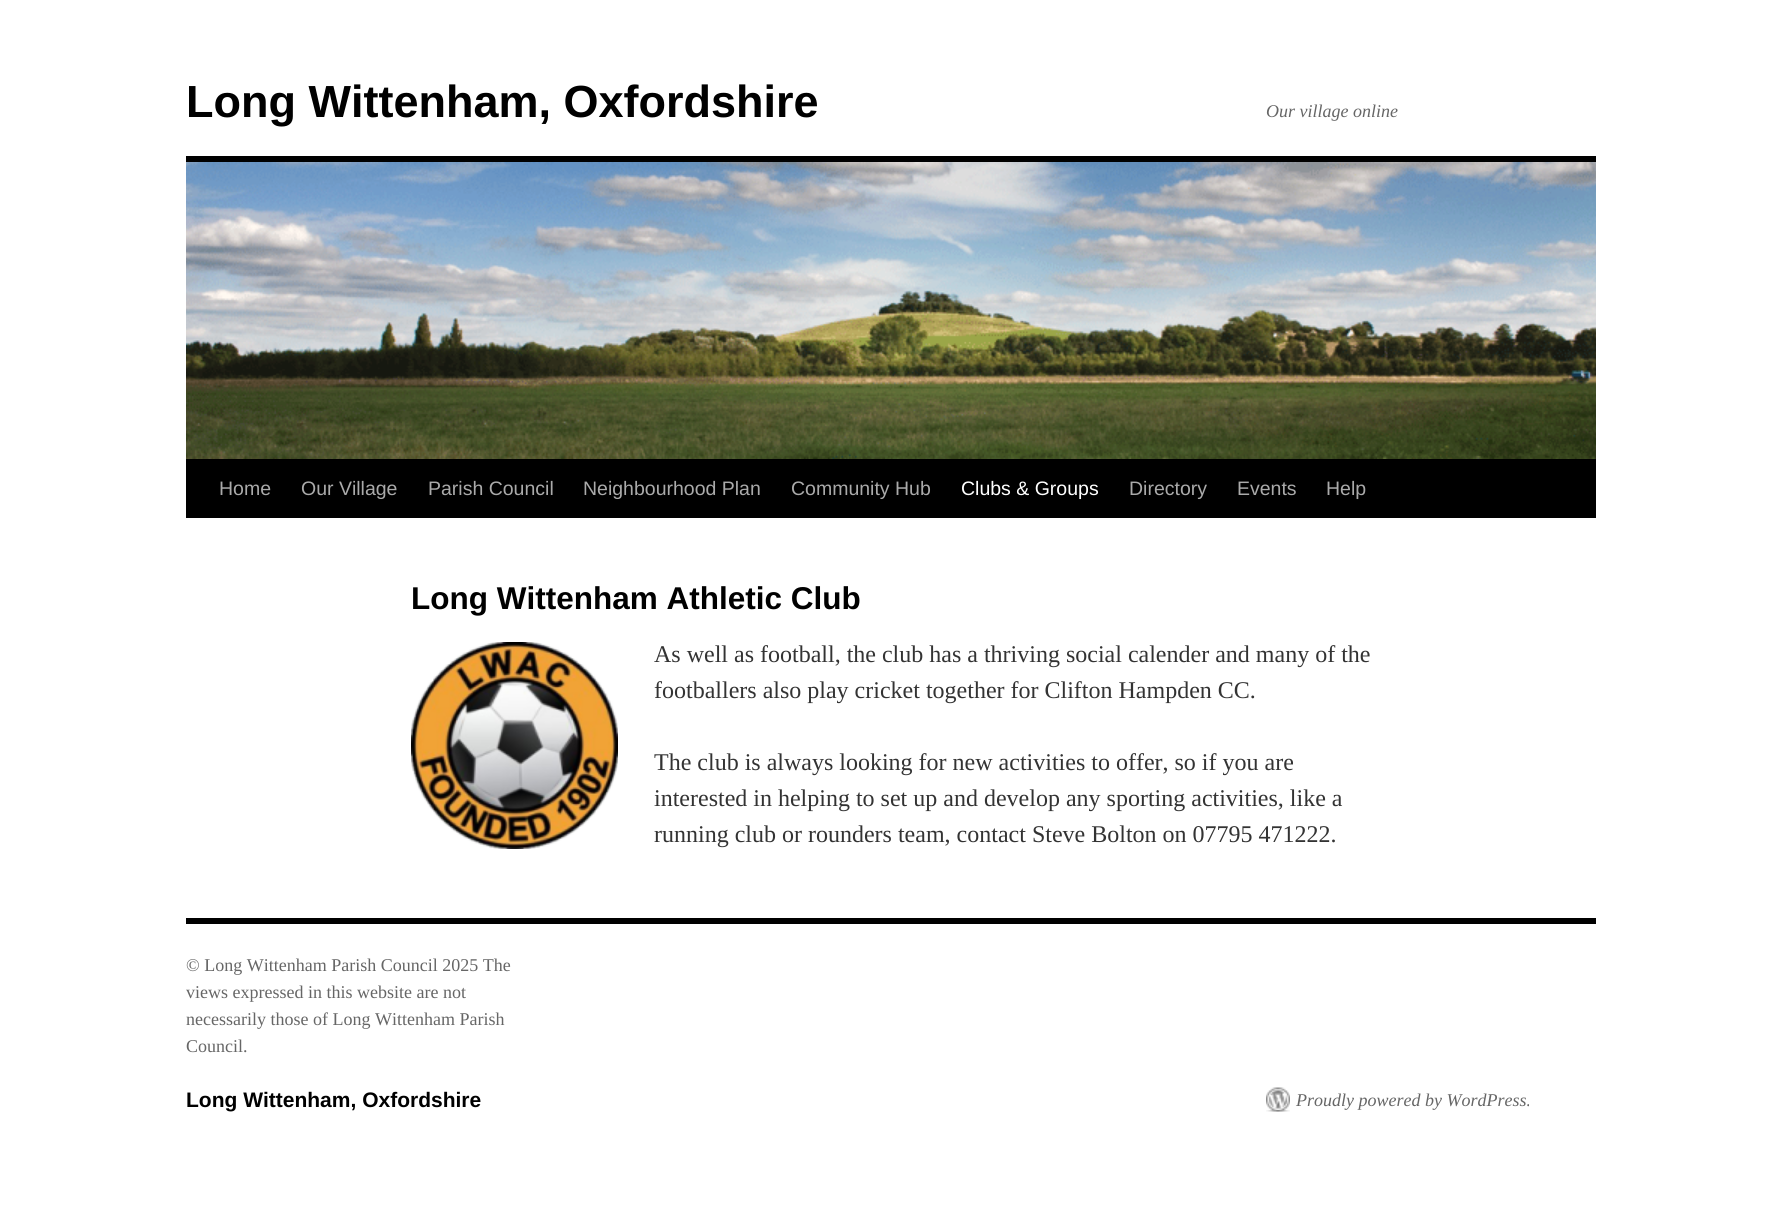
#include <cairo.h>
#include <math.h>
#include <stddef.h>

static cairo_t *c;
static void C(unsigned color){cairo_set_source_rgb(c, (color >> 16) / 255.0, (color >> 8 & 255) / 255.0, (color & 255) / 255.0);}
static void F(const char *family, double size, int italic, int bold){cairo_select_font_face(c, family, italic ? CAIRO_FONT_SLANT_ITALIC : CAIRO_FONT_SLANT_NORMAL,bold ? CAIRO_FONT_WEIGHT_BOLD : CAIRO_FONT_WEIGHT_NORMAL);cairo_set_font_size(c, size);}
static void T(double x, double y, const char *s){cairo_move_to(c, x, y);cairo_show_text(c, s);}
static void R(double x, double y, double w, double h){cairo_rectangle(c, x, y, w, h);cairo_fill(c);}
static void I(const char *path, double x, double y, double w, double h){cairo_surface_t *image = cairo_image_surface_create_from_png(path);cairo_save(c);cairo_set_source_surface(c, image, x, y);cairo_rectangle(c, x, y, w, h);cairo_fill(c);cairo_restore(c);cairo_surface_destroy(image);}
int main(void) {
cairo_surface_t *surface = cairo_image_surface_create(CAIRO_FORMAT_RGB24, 1781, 1227);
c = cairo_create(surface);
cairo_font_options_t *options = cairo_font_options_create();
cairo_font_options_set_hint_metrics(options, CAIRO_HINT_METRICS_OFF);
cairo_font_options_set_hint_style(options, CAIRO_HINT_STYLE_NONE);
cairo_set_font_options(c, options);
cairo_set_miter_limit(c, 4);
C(0xffffff);
cairo_paint(c);
F("Liberation Sans",45,0,1);
C(0x000000);
T(186,117,"Long Wittenham, Oxfordshire");
F("Liberation Serif",18,1,0);
C(0x666666);
T(1266,117,"Our village online");
C(0x000000);
R(186,156,1410,6);
R(186,459,1410,59);
I("1.png",186,162,1410,297);
F("Liberation Sans",19.5,0,0);
C(0xaaaaaa);
T(219,495,"Home");
T(301,495,"Our Village");
T(428,495,"Parish Council");
T(583,495,"Neighbourhood Plan");
T(791,495,"Community Hub");
C(0xffffff);
T(961,495,"Clubs & Groups");
C(0xaaaaaa);
T(1129,495,"Directory");
T(1237,495,"Events");
T(1326,495,"Help");
F("Liberation Sans",31.5,0,1);
C(0x000000);
T(411,609,"Long Wittenham Athletic Club");
I("2.png",411,642,207,207);
F("Liberation Serif",24,0,0);
C(0x333333);
T(654,662,"As well as football, the club has a thriving social calender and many of the");
T(654,698,"footballers also play cricket together for Clifton Hampden CC.");
T(654,770,"The club is always looking for new activities to offer, so if you are");
T(654,806,"interested in helping to set up and develop any sporting activities, like a");
T(654,842,"running club or rounders team, contact Steve Bolton on 07795 471222.");
C(0x000000);
R(186,918,1410,6);
F("Liberation Serif",18,0,0);
C(0x666666);
T(186,971,"© Long Wittenham Parish Council 2025 The");
T(186,998,"views expressed in this website are not");
T(186,1025,"necessarily those of Long Wittenham Parish");
T(186,1052,"Council.");
F("Liberation Sans",21,0,1);
C(0x000000);
T(186,1107,"Long Wittenham, Oxfordshire");
I("3.png",1266,1087,24,25);
F("Liberation Serif",18,1,0);
C(0x666666);
T(1296,1106,"Proudly powered by WordPress.");
cairo_surface_write_to_png(surface, "o.png");
cairo_font_options_destroy(options);
cairo_destroy(c);
cairo_surface_destroy(surface);
return 0;
}
